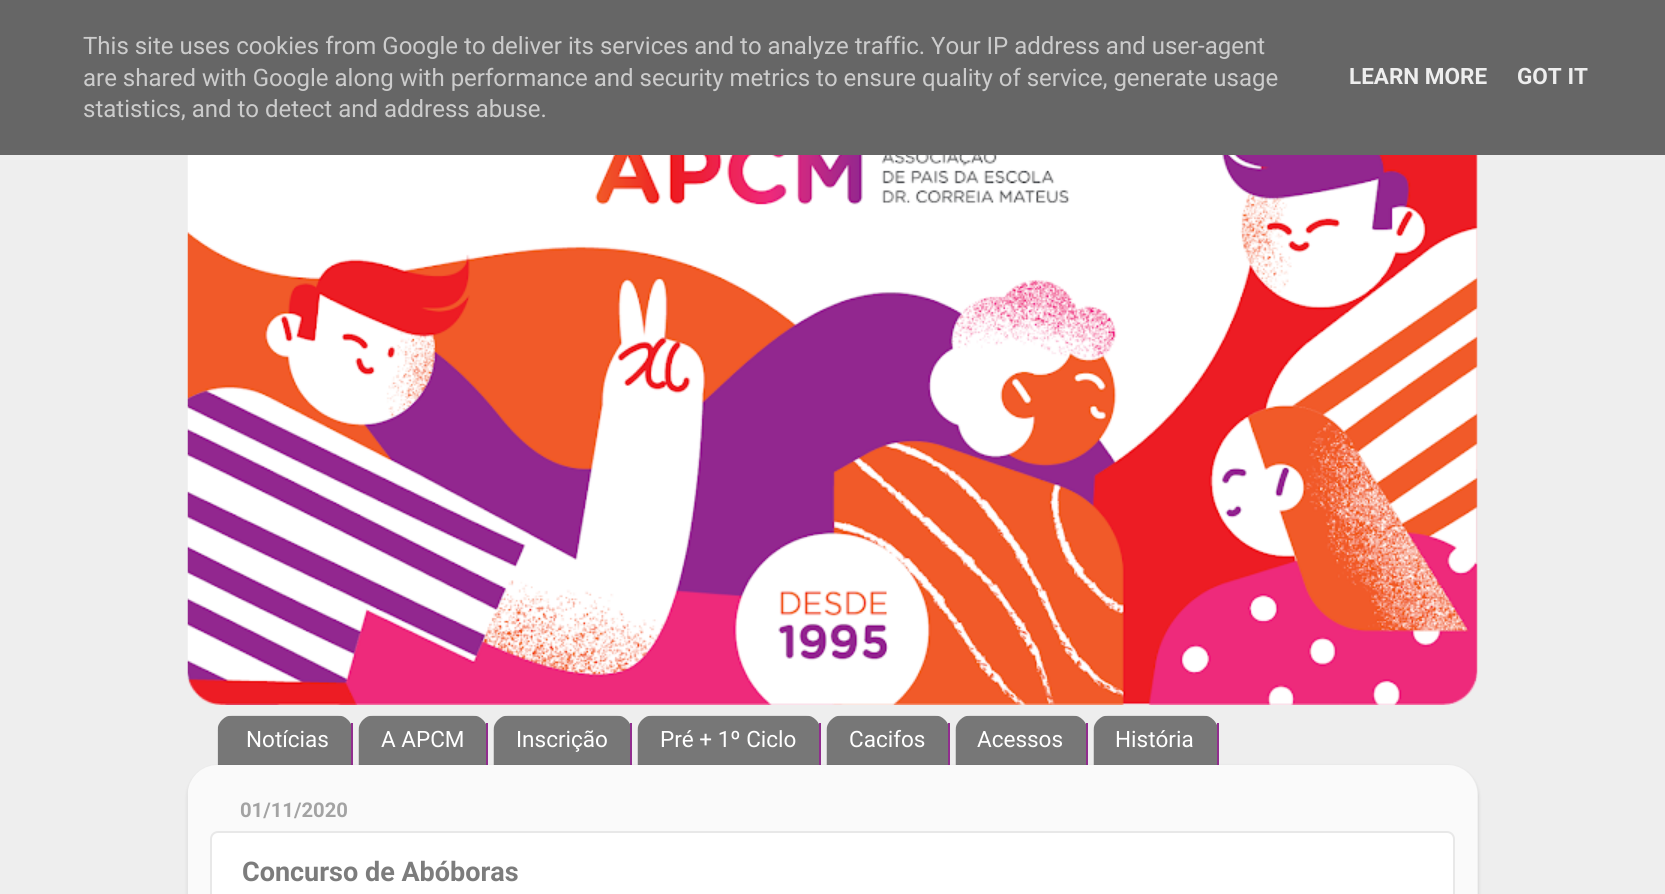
#include <cairo.h>
#include <math.h>
#include <stddef.h>

static cairo_t *c;
static void C(unsigned color){cairo_set_source_rgb(c, (color >> 16) / 255.0, (color >> 8 & 255) / 255.0, (color & 255) / 255.0);}
static void F(const char *family, double size, int italic, int bold){cairo_select_font_face(c, family, italic ? CAIRO_FONT_SLANT_ITALIC : CAIRO_FONT_SLANT_NORMAL,bold ? CAIRO_FONT_WEIGHT_BOLD : CAIRO_FONT_WEIGHT_NORMAL);cairo_set_font_size(c, size);}
static void T(double x, double y, const char *s){cairo_move_to(c, x, y);cairo_show_text(c, s);}
static void R(double x, double y, double w, double h){cairo_rectangle(c, x, y, w, h);cairo_fill(c);}
static void Q(double x, double y, double w, double h, double r){cairo_new_sub_path(c);cairo_arc(c, x + w - r, y + h - r, r, 0, M_PI / 2);cairo_arc(c, x + r, y + h - r, r, M_PI / 2, M_PI);cairo_arc(c, x + r, y + r, r, M_PI, 1.5 * M_PI);cairo_arc(c, x + w - r, y + r, r, 1.5 * M_PI, 2 * M_PI);cairo_close_path(c);}
static void S(double x, double y, double w, double h, double r, double blur, double alpha){cairo_push_group_with_content(c, CAIRO_CONTENT_ALPHA);cairo_set_operator(c, CAIRO_OPERATOR_SOURCE);for (int i = 15; i >= -15 && fmin(w, h) + blur * i / 3 > 0; i -= 2) {double e = blur * i / 6;cairo_set_source_rgba(c, 0, 0, 0, alpha * erfc((i - 1) / 8.5) / 2);Q(x - e, y - e, w + 2 * e, h + 2 * e, fmax(0, fmin(r + e + blur * .6, fmin(w, h) / 2 + e)));cairo_fill(c);}cairo_pattern_t *soft = cairo_pop_group(c);cairo_mask(c, soft);cairo_pattern_destroy(soft);}
static void I(const char *path, double x, double y, double w, double h){cairo_surface_t *image = cairo_image_surface_create_from_png(path);cairo_save(c);cairo_set_source_surface(c, image, x, y);cairo_rectangle(c, x, y, w, h);cairo_fill(c);cairo_restore(c);cairo_surface_destroy(image);}
int main(void) {
cairo_surface_t *surface = cairo_image_surface_create(CAIRO_FORMAT_RGB24, 1665, 894);
c = cairo_create(surface);
cairo_font_options_t *options = cairo_font_options_create();
cairo_font_options_set_hint_metrics(options, CAIRO_HINT_METRICS_OFF);
cairo_font_options_set_hint_style(options, CAIRO_HINT_STYLE_NONE);
cairo_set_font_options(c, options);
cairo_set_miter_limit(c, 4);
C(0xeeeeee);
cairo_paint(c);
C(0x666666);
R(0,0,1665,155);
F("Roboto",24,0,0);
C(0xcccccc);
T(83,54,"This site uses cookies from Google to deliver its services and to analyze traffic. Your IP address and user-agent");
T(83,86,"are shared with Google along with performance and security metrics to ensure quality of service, generate usage");
T(83,117,"statistics, and to detect and address abuse.");
F("Roboto",22.5,0,1);
C(0xeeeeee);
T(1349,84,"LEARN MORE");
T(1517,84,"GOT IT");
I("1.png",187,155,1291,550);
I("2.png",217,715,134,50);
C(0x912d8e);
R(351,723,2,42);
F("Roboto",22.5,0,0);
C(0xffffff);
T(246,747,"Notícias");
I("3.png",358,715,128,50);
C(0x912d8e);
R(486,723,2,42);
C(0xffffff);
T(381,747,"A APCM");
I("4.png",493,715,137,50);
C(0x912d8e);
R(630,723,2,42);
C(0xffffff);
T(516,747,"Inscrição");
I("5.png",637,715,182,50);
C(0x912d8e);
R(819,723,2,42);
C(0xffffff);
T(660,747,"Pré + 1º Ciclo");
I("6.png",826,715,122,50);
C(0x912d8e);
R(948,723,2,42);
C(0xffffff);
T(849,747,"Cacifos");
I("7.png",955,715,131,50);
C(0x912d8e);
R(1086,723,2,42);
C(0xffffff);
T(977,747,"Acessos");
I("8.png",1093,715,124,50);
C(0x912d8e);
R(1217,723,2,42);
C(0xffffff);
T(1115,747,"História");
cairo_save(c);
cairo_set_fill_rule(c,CAIRO_FILL_RULE_EVEN_ODD);
cairo_new_path(c);
cairo_move_to(c,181,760);
cairo_line_to(c,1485,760);
cairo_line_to(c,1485,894);
cairo_line_to(c,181,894);
cairo_close_path(c);
cairo_move_to(c,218,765);
cairo_line_to(c,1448,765);
cairo_curve_to(c,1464.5,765,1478,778.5,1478,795);
cairo_line_to(c,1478,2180);
cairo_line_to(c,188,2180);
cairo_line_to(c,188,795);
cairo_curve_to(c,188,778.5,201.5,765,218,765);
cairo_close_path(c);
cairo_clip(c);
C(0x000000);
S(188,767,1290,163,30,2,.15);
cairo_restore(c);
I("9.png",187,765,1291,129);
F("Roboto",20.25,0,1);
C(0xa3a3a3);
T(240,817,"01/11/2020");
C(0xffffff);
Q(211,832,1243,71,7);
cairo_fill_preserve(c);
C(0xe8e8e8);
cairo_stroke(c);
F("Roboto",27,0,1);
C(0x7c7c7c);
T(242,881,"Concurso de Abóboras");
cairo_surface_write_to_png(surface, "o.png");
cairo_font_options_destroy(options);
cairo_destroy(c);
cairo_surface_destroy(surface);
return 0;
}
